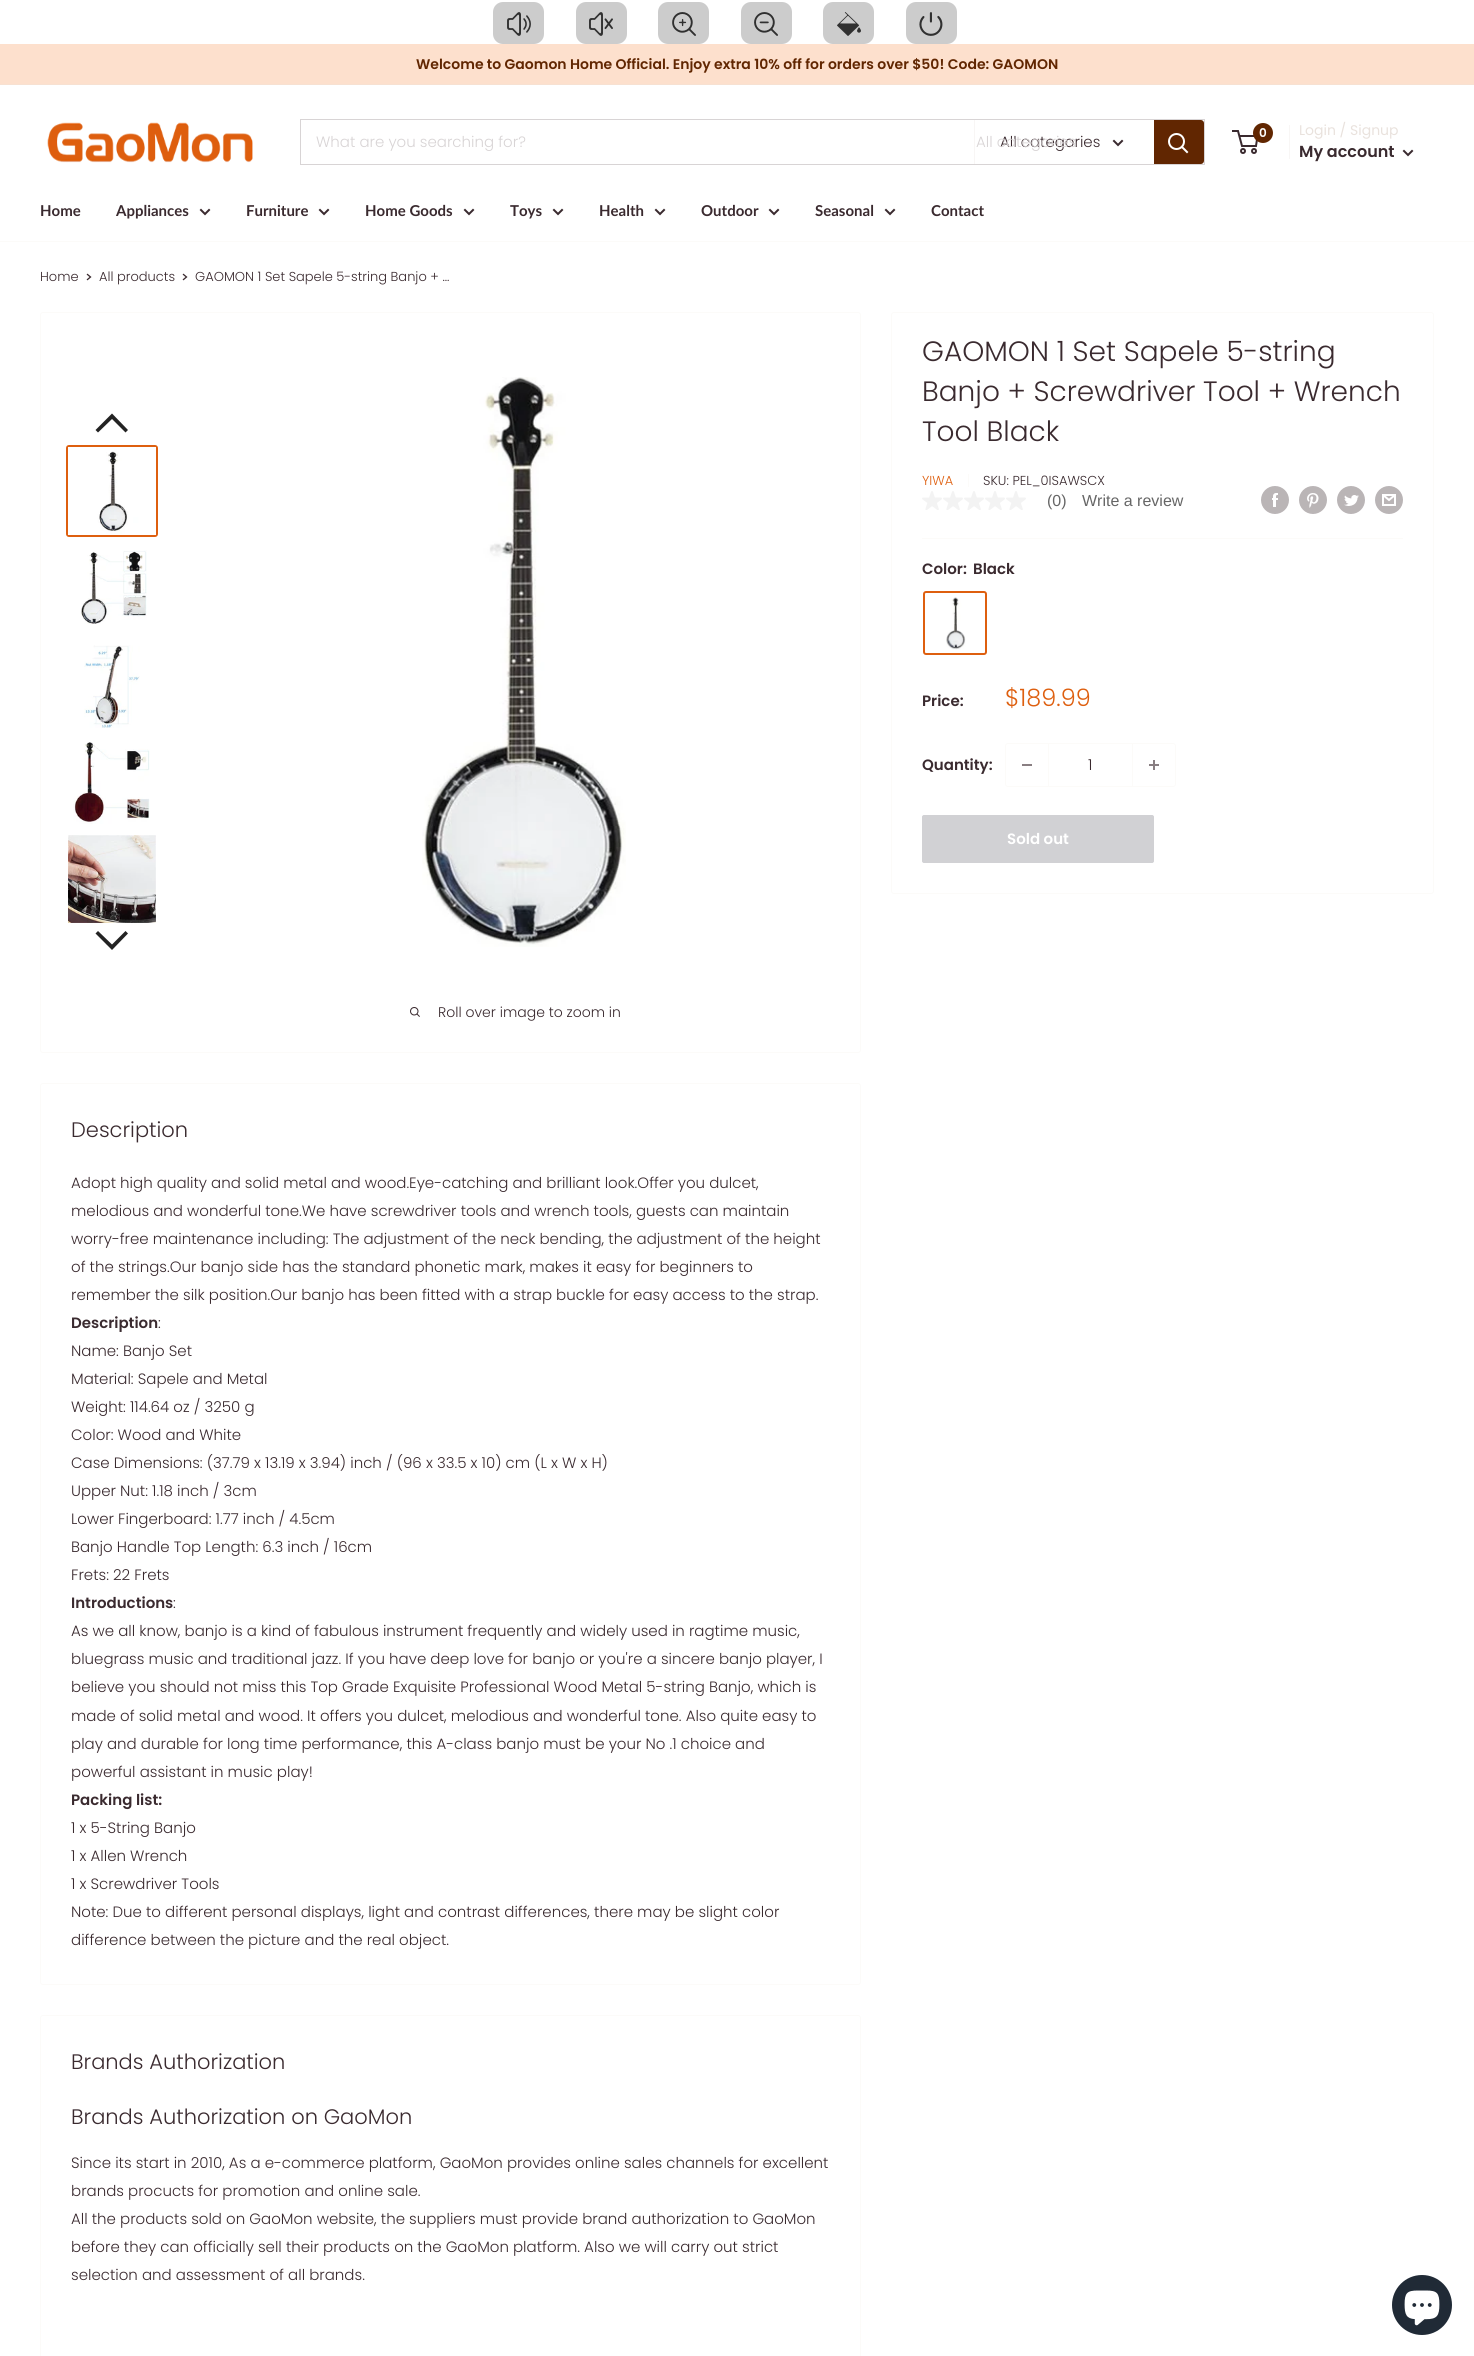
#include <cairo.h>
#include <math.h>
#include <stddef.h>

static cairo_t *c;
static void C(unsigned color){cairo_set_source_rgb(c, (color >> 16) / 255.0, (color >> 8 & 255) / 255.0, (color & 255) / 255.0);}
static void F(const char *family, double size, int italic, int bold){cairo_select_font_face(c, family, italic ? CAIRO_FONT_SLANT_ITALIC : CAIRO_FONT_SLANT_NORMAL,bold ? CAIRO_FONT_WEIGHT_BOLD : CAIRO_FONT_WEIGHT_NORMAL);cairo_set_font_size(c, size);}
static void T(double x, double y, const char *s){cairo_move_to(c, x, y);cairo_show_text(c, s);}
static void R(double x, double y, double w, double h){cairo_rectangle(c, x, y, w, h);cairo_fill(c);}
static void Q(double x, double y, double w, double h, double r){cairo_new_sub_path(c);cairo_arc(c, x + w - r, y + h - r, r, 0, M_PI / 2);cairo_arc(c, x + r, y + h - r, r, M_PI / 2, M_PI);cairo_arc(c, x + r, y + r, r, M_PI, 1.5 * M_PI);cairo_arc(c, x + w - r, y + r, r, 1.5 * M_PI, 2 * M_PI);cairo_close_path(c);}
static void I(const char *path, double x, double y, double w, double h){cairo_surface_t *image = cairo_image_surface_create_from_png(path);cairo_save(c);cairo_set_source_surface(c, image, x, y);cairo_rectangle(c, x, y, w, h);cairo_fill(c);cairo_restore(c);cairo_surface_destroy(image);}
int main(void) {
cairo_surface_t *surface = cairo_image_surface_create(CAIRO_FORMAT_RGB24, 1474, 2356);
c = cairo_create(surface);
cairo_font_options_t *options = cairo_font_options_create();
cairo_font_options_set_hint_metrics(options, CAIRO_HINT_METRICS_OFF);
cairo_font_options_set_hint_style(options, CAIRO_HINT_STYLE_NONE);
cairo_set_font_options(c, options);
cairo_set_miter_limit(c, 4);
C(0xffffff);
cairo_paint(c);
C(0xcccccc);
Q(493,2,51,42,10);
cairo_fill(c);
I("1.png",507,12,24,24);
Q(576,2,51,42,10);
cairo_fill(c);
I("2.png",589,12,24,24);
Q(658,2,51,42,10);
cairo_fill(c);
I("3.png",672,12,24,24);
Q(741,2,51,42,10);
cairo_fill(c);
I("4.png",754,12,24,24);
Q(823,2,51,42,10);
cairo_fill(c);
I("5.png",837,12,24,24);
Q(906,2,51,42,10);
cairo_fill(c);
I("6.png",919,12,24,24);
C(0xfde0cd);
R(0,44,1474,40);
C(0xf7e1d2);
R(0,84,1474,1);
F("Poppins SemiBold",14,0,0);
C(0x612601);
T(416,69,"Welcome to Gaomon Home Official. Enjoy extra 10% off for orders over $50! Code: GAOMON");
I("7.png",47,122,206,41);
cairo_rectangle(c,300.5,119.5,904,45);
C(0xd8d4d5);
cairo_set_line_width(c,1);
cairo_stroke(c);
F("Poppins Light",15,0,0);
T(316,147,"What are you searching for?");
C(0xf8f6f5);
R(974,120,1,44);
C(0x3a2a2f);
T(1000,147,"All categories");
C(0xd8d4d5);
T(976,147,"All categories");
cairo_new_path(c);
cairo_move_to(c,1122,141);
cairo_line_to(c,1118,145);
cairo_line_to(c,1114,141);
C(0x3a2a2f);
cairo_set_line_width(c,2);
cairo_set_line_cap(c,CAIRO_LINE_CAP_SQUARE);
cairo_stroke(c);
C(0x612601);
cairo_new_path(c);
cairo_move_to(c,1154,120);
cairo_line_to(c,1201,120);
cairo_curve_to(c,1202.5,120,1204,121.5,1204,123);
cairo_line_to(c,1204,161);
cairo_curve_to(c,1204,162.5,1202.5,164,1201,164);
cairo_line_to(c,1154,164);
cairo_close_path(c);
cairo_fill(c);
cairo_new_path(c);
cairo_move_to(c,1187,152);
cairo_line_to(c,1182,147);
C(0xffffff);
cairo_stroke(c);
cairo_arc(c,1176.5,141.5,7.5,0,2 * M_PI);
cairo_set_line_cap(c,CAIRO_LINE_CAP_BUTT);
cairo_stroke(c);
cairo_arc(c,1243,151,2,0,2 * M_PI);
C(0x3a2a2f);
cairo_stroke(c);
cairo_arc(c,1254,151,2,0,2 * M_PI);
cairo_stroke(c);
cairo_new_path(c);
cairo_move_to(c,1239.5,136);
cairo_line_to(c,1257.5,136);
cairo_line_to(c,1256,146);
cairo_line_to(c,1242,146);
cairo_line_to(c,1238,131);
cairo_line_to(c,1232,131);
cairo_stroke(c);
C(0x612601);
cairo_arc(c,1263,133,10,0,2 * M_PI);
cairo_fill(c);
F("Poppins SemiBold",12,0,0);
C(0xffffff);
T(1259,137,"0");
C(0xf8f6f5);
R(1289,125,1,34);
F("Poppins",14,0,0);
C(0xe9e2dd);
T(1299,135,"Login / Signup");
F("Poppins SemiBold",16,0,0);
C(0x3a2a2f);
T(1299,157,"My account");
cairo_new_path(c);
cairo_move_to(c,1412,151);
cairo_line_to(c,1408,155);
cairo_line_to(c,1404,151);
cairo_set_line_cap(c,CAIRO_LINE_CAP_SQUARE);
cairo_stroke(c);
C(0xfcfbf9);
R(0,241,1474,1);
F("Lato",15,0,1);
C(0x3a2a2f);
T(40,216,"Home");
T(116,216,"Appliances");
cairo_new_path(c);
cairo_move_to(c,209,210);
cairo_line_to(c,205,214);
cairo_line_to(c,201,210);
cairo_stroke(c);
T(246,216,"Furniture");
cairo_new_path(c);
cairo_move_to(c,328,210);
cairo_line_to(c,324,214);
cairo_line_to(c,320,210);
cairo_stroke(c);
T(365,216,"Home Goods");
cairo_new_path(c);
cairo_move_to(c,473,210);
cairo_line_to(c,469,214);
cairo_line_to(c,465,210);
cairo_stroke(c);
T(510,216,"Toys");
cairo_new_path(c);
cairo_move_to(c,562,210);
cairo_line_to(c,558,214);
cairo_line_to(c,554,210);
cairo_stroke(c);
T(599,216,"Health");
cairo_new_path(c);
cairo_move_to(c,664,210);
cairo_line_to(c,660,214);
cairo_line_to(c,656,210);
cairo_stroke(c);
T(701,216,"Outdoor");
cairo_new_path(c);
cairo_move_to(c,778,210);
cairo_line_to(c,774,214);
cairo_line_to(c,770,210);
cairo_stroke(c);
T(815,216,"Seasonal");
cairo_new_path(c);
cairo_move_to(c,894,210);
cairo_line_to(c,890,214);
cairo_line_to(c,886,210);
cairo_stroke(c);
T(931,216,"Contact");
F("Poppins Light",13,0,0);
T(40,281,"Home");
cairo_new_path(c);
cairo_move_to(c,87.5,274.5);
cairo_line_to(c,90.5,277);
cairo_line_to(c,87.5,279.5);
cairo_set_line_width(c,1.3);
cairo_stroke(c);
T(99,281,"All products");
cairo_new_path(c);
cairo_move_to(c,183.5,274.5);
cairo_line_to(c,186.5,277);
cairo_line_to(c,183.5,279.5);
cairo_stroke(c);
T(195,281,"GAOMON 1 Set Sapele 5-string Banjo + ...");
Q(891.5,312.5,542,581,2.5);
C(0xfcfbf9);
cairo_set_line_width(c,1);
cairo_set_line_cap(c,CAIRO_LINE_CAP_BUTT);
cairo_stroke(c);
F("Poppins Light",28,0,0);
C(0x3a2a2f);
T(922,361,"GAOMON 1 Set Sapele 5-string");
T(922,401,"Banjo + Screwdriver Tool + Wrench");
T(922,441,"Tool Black");
F("Poppins Light",13,0,0);
C(0xde5f0f);
T(922,485,"YIWA");
C(0xfcfbf9);
R(968,474,1,13);
C(0x3a2a2f);
T(983,485,"SKU: PEL_0ISAWSCX");
I("8.png",922,491,20,19);
I("8.png",943,491,20,19);
I("8.png",964,491,20,19);
I("8.png",985,491,20,19);
I("8.png",1006,491,20,19);
F("Liberation Sans",16,0,0);
C(0x666666);
T(1047,506,"(0)");
T(1082,506,"Write a review");
I("9.png",1261,486,28,28);
I("10.png",1299,486,28,28);
I("11.png",1337,486,28,28);
I("12.png",1375,486,28,28);
C(0xfcfbf9);
R(922,538,481,1);
F("Poppins SemiBold",15,0,0);
C(0x3a2a2f);
T(922,574,"Color:");
T(973,574,"Black");
Q(924,592,62,62,2);
C(0xde5f0f);
cairo_set_line_width(c,2);
cairo_stroke(c);
I("13.png",946,597,20,53);
C(0x3a2a2f);
T(922,706,"Price:");
F("Poppins Light",24,0,0);
C(0xde5f0f);
T(1005,706,"$189.99");
F("Poppins SemiBold",15,0,0);
C(0x3a2a2f);
T(922,770,"Quantity:");
Q(1005.5,743.5,170,43,2.5);
C(0xfcfbf9);
cairo_set_line_width(c,1);
cairo_stroke(c);
C(0x897f82);
R(1022,764,10,2);
C(0xfcfbf9);
R(1132,744,1,42);
R(1048,744,1,42);
F("Poppins Light",15,0,0);
C(0x3a2a2f);
T(1088,770,"1");
I("14.png",1149,760,10,10);
C(0xd1d1d4);
Q(922.5,815.5,231,47,1.5);
cairo_fill_preserve(c);
cairo_stroke(c);
F("Poppins SemiBold",15,0,0);
C(0xffffff);
T(1007,844,"Sold out");
Q(40.5,312.5,820,740,2.5);
C(0xfcfbf9);
cairo_stroke(c);
C(0x232323);
cairo_new_path(c);
cairo_move_to(c,125.5,432.5);
cairo_line_to(c,128,430);
cairo_line_to(c,112,413.5);
cairo_line_to(c,95.5,430);
cairo_line_to(c,98,432.5);
cairo_line_to(c,112,419);
cairo_close_path(c);
cairo_fill(c);
Q(67,446,90,90,2);
C(0xde5f0f);
cairo_set_line_width(c,2);
cairo_stroke(c);
I("15.png",68,447,88,88);
I("16.png",81,550,66,74);
I("17.png",84,645,56,83);
I("18.png",73,742,77,82);
I("19.png",68,835,88,88);
C(0x232323);
cairo_new_path(c);
cairo_move_to(c,112,944.5);
cairo_line_to(c,125.5,931);
cairo_line_to(c,128,933.5);
cairo_line_to(c,112,950);
cairo_line_to(c,95.5,933.5);
cairo_line_to(c,98,931);
cairo_close_path(c);
cairo_fill(c);
I("20.png",422,377,204,570);
I("21.png",410,1007,10,10);
F("Poppins Light",14,0,0);
C(0x3a2a2f);
T(438,1017,"Roll over image to zoom in");
Q(40.5,1083.5,820,901,2.5);
C(0xfcfbf9);
cairo_set_line_width(c,1);
cairo_stroke(c);
F("Poppins Light",21,0,0);
C(0x3a2a2f);
T(71,1137,"Description");
F("Poppins Light",15,0,0);
T(71,1188,"Adopt high quality and solid metal and wood.Eye-catching and brilliant look.Offer you dulcet,");
T(71,1216,"melodious and wonderful tone.We have screwdriver tools and wrench tools, guests can maintain");
T(71,1244,"worry-free maintenance including: The adjustment of the neck bending, the adjustment of the height");
T(71,1272,"of the strings.Our banjo side has the standard phonetic mark, makes it easy for beginners to");
T(71,1300,"remember the silk position.Our banjo has been fitted with a strap buckle for easy access to the strap.");
F("Poppins SemiBold",15,0,0);
T(71,1328,"Description");
F("Poppins Light",15,0,0);
T(158,1328,":");
T(71,1356,"Name: Banjo Set");
T(71,1384,"Material: Sapele and Metal");
T(71,1412,"Weight: 114.64 oz / 3250 g");
T(71,1440,"Color: Wood and White");
T(71,1468,"Case Dimensions: (37.79 x 13.19 x 3.94) inch / (96 x 33.5 x 10) cm (L x W x H)");
T(71,1496,"Upper Nut: 1.18 inch / 3cm");
T(71,1524,"Lower Fingerboard: 1.77 inch / 4.5cm");
T(71,1552,"Banjo Handle Top Length: 6.3 inch / 16cm");
T(71,1580,"Frets: 22 Frets");
F("Poppins SemiBold",15,0,0);
T(71,1608,"Introductions");
F("Poppins Light",15,0,0);
T(173,1608,":");
T(71,1636,"As we all know, banjo is a kind of fabulous instrument frequently and widely used in ragtime music,");
T(71,1664,"bluegrass music and traditional jazz. If you have deep love for banjo or you're a sincere banjo player, I");
T(71,1692,"believe you should not miss this Top Grade Exquisite Professional Wood Metal 5-string Banjo, which is");
T(71,1721,"made of solid metal and wood. It offers you dulcet, melodious and wonderful tone. Also quite easy to");
T(71,1749,"play and durable for long time performance, this A-class banjo must be your No .1 choice and");
T(71,1777,"powerful assistant in music play!");
F("Poppins SemiBold",15,0,0);
T(71,1805,"Packing list:");
F("Poppins Light",15,0,0);
T(71,1833,"1 x 5-String Banjo");
T(71,1861,"1 x Allen Wrench");
T(71,1889,"1 x Screwdriver Tools");
T(71,1917,"Note: Due to different personal displays, light and contrast differences, there may be slight color");
T(71,1945,"difference between the picture and the real object.");
Q(40.5,2015.5,820,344,2.5);
C(0xfcfbf9);
cairo_stroke(c);
F("Poppins Light",21,0,0);
C(0x3a2a2f);
T(71,2069,"Brands Authorization");
T(71,2124,"Brands Authorization on GaoMon");
F("Poppins Light",15,0,0);
T(71,2168,"Since its start in 2010, As a e-commerce platform, GaoMon provides online sales channels for excellent");
T(71,2196,"brands procucts for promotion and online sale.");
T(71,2224,"All the products sold on GaoMon website, the suppliers must provide brand authorization to GaoMon");
T(71,2252,"before they can officially sell their products on the GaoMon platform. Also we will carry out strict");
T(71,2280,"selection and assessment of all brands.");
C(0x202a36);
cairo_new_path(c);
cairo_arc(c,1422,2305,30,0,2 * M_PI);
cairo_fill(c);
I("22.png",1404,2290,36,36);
cairo_surface_write_to_png(surface, "o.png");
cairo_font_options_destroy(options);
cairo_destroy(c);
cairo_surface_destroy(surface);
return 0;
}
